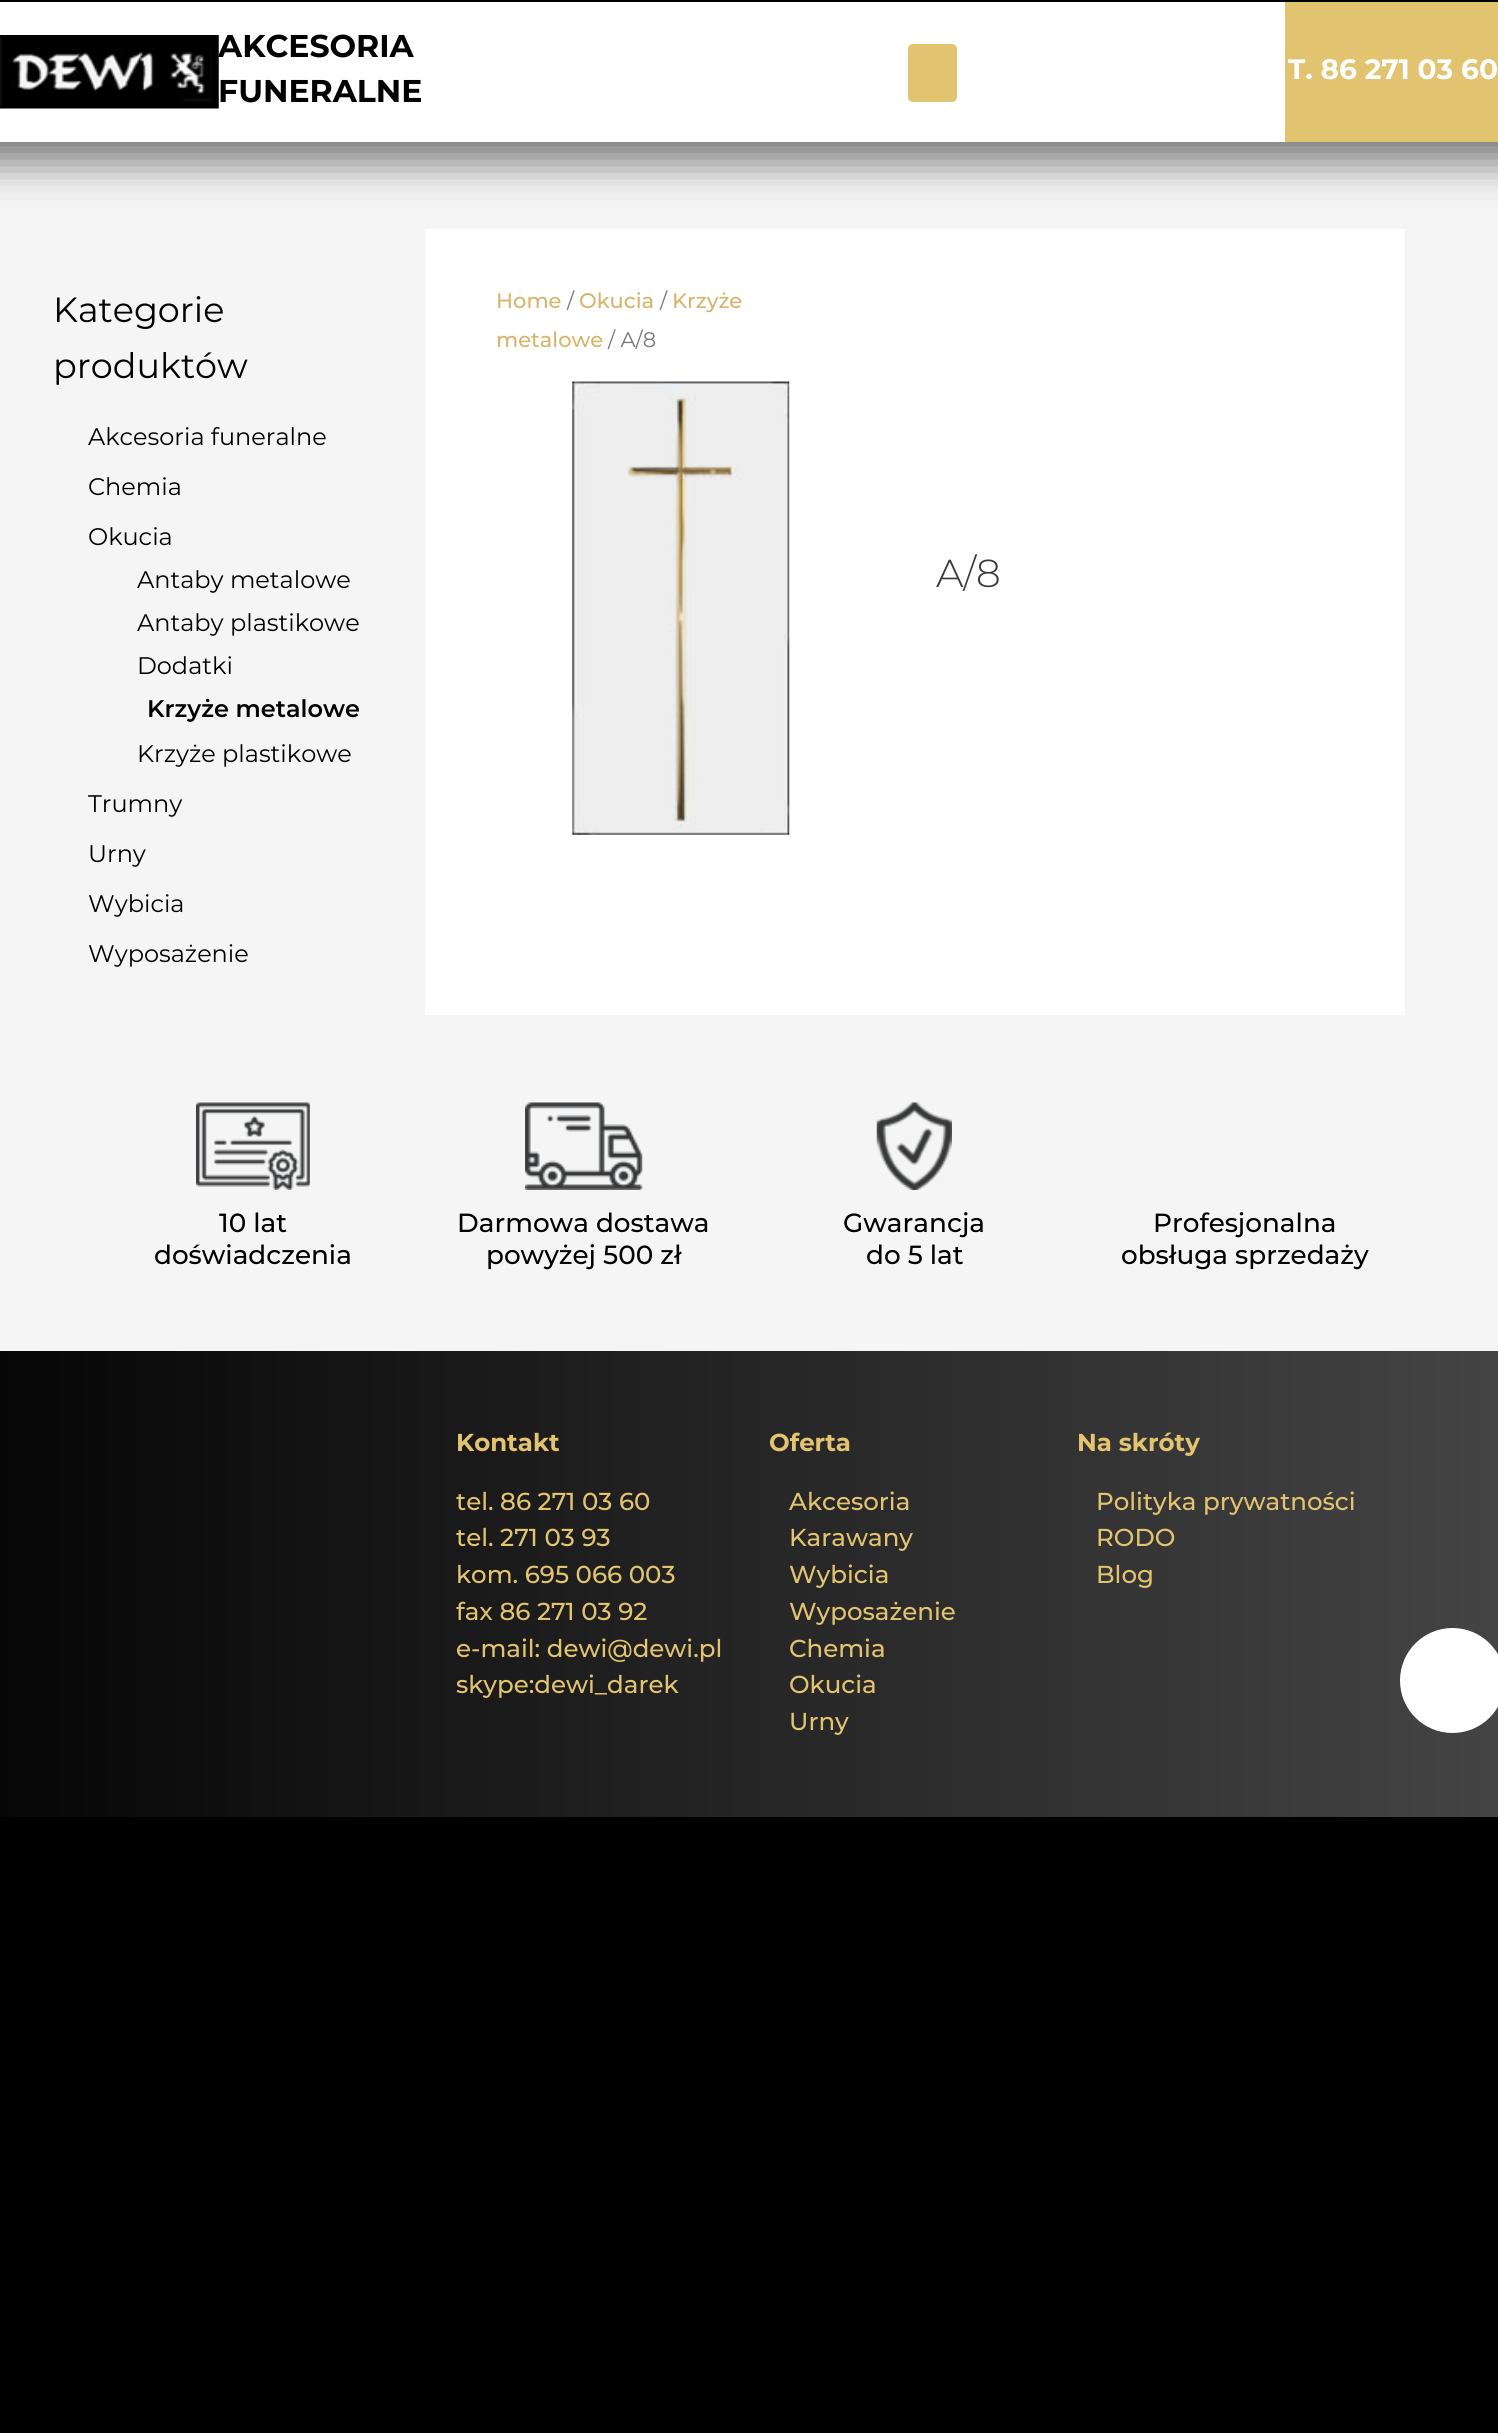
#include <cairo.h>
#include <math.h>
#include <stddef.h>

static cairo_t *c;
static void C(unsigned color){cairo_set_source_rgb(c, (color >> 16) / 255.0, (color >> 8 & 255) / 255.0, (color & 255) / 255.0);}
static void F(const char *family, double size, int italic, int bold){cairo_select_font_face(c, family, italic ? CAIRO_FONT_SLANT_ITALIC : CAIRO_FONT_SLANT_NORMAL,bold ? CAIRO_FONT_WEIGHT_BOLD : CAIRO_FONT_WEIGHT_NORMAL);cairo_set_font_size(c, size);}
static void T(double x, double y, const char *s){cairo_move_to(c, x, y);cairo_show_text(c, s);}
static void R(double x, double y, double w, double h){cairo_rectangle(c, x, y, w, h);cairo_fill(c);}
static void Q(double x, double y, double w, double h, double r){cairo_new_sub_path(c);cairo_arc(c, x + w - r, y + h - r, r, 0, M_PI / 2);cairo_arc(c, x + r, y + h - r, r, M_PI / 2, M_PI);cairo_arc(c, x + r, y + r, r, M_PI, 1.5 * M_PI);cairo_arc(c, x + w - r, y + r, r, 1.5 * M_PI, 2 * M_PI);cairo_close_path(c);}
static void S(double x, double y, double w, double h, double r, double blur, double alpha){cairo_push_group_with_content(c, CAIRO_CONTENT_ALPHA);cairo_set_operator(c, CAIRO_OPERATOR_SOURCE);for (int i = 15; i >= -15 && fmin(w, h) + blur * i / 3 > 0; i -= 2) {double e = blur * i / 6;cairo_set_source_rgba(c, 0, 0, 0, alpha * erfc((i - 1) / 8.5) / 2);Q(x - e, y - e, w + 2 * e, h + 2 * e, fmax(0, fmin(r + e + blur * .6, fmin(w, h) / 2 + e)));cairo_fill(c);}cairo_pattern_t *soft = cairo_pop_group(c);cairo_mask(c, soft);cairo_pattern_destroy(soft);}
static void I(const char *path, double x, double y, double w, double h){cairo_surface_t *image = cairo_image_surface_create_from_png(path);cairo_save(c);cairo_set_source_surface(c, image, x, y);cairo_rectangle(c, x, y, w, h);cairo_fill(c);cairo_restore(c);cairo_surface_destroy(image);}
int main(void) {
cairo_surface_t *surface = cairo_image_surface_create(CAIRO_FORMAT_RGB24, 1498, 2433);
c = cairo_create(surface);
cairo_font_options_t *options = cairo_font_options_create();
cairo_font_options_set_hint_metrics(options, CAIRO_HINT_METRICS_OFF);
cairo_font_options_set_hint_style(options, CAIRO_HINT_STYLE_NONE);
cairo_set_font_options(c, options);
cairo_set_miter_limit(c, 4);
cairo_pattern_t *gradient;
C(0x000000);
cairo_paint(c);
C(0xf5f5f5);
R(0,142,1498,1209);
C(0x000000);
S(-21,-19,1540,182,0,20,.5);
C(0xffffff);
R(0,2,1285,140);
I("1.png",0,35,219,74);
F("Montserrat",31.5,0,1);
C(0x000000);
T(218,57,"AKCESORIA");
T(218,102,"FUNERALNE");
C(0xe2c370);
Q(908,44,49,58,5);
cairo_fill(c);
R(1285,2,213,140);
F("Montserrat",28,0,1);
C(0xffffff);
T(1288,79,"T. 86 271 03 60");
F("Montserrat",35,0,0);
C(0x000000);
T(53,322,"Kategorie");
T(53,378,"produktów");
F("Montserrat",24,0,0);
T(88,445,"Akcesoria funeralne");
T(88,495,"Chemia");
T(88,545,"Okucia");
T(137,588,"Antaby metalowe");
T(137,631,"Antaby plastikowe");
T(137,674,"Dodatki");
F("Montserrat SemiBold",24,0,0);
T(147,717,"Krzyże metalowe");
F("Montserrat",24,0,0);
T(137,762,"Krzyże plastikowe");
T(88,812,"Trumny");
T(88,862,"Urny");
T(88,912,"Wybicia");
T(88,962,"Wyposażenie");
C(0xffffff);
R(425,229,980,786);
F("Montserrat Medium",21,0,0);
C(0xd7b46a);
T(496,308,"Home");
F("Montserrat",21,0,0);
C(0x777777);
T(567,308,"/");
F("Montserrat Medium",21,0,0);
C(0xd7b46a);
T(579,308,"Okucia");
F("Montserrat",21,0,0);
C(0x777777);
T(660,308,"/");
F("Montserrat Medium",21,0,0);
C(0xd7b46a);
T(672,308,"Krzyże");
T(496,347,"metalowe");
F("Montserrat",21,0,0);
C(0x777777);
T(608,347,"/ A/8");
I("2.png",572,381,218,454);
F("Montserrat Light",39,0,0);
C(0x3a3a3a);
T(936,587,"A/8");
I("3.png",196,1102,114,88);
F("Montserrat Medium",26.25,0,0);
C(0x000000);
T(219,1232,"10 lat");
T(154,1264,"doświadczenia");
I("4.png",525,1102,118,88);
T(457,1232,"Darmowa dostawa");
T(486,1264,"powyżej 500 zł");
I("5.png",876,1102,76,88);
T(843,1232,"Gwarancja");
T(866,1264,"do 5 lat");
T(1153,1232,"Profesjonalna");
T(1121,1264,"obsługa sprzedaży");
gradient = cairo_pattern_create_linear(0,1584,1498,1584);
cairo_pattern_add_color_stop_rgba(gradient,0,0.024,0.024,0.024,1);
cairo_pattern_add_color_stop_rgba(gradient,1,0.267,0.267,0.267,1);
cairo_set_source(c,gradient);
cairo_pattern_destroy(gradient);
R(0,1351,1498,466);
F("Montserrat",24.5,0,1);
C(0xe2c370);
T(456,1451,"Kontakt");
F("Montserrat Medium",24.5,0,0);
T(456,1510,"tel. 86 271 03 60");
T(456,1546,"tel. 271 03 93");
T(456,1583,"kom. 695 066 003");
T(456,1620,"fax 86 271 03 92");
T(456,1657,"e-mail: dewi@dewi.pl");
T(456,1693,"skype:dewi_darek");
F("Montserrat",24.5,0,1);
T(769,1451,"Oferta");
F("Montserrat Medium",24.5,0,0);
T(789,1510,"Akcesoria");
T(789,1546,"Karawany");
T(789,1583,"Wybicia");
T(789,1620,"Wyposażenie");
T(789,1657,"Chemia");
T(789,1693,"Okucia");
T(789,1730,"Urny");
F("Montserrat",24.5,0,1);
T(1077,1451,"Na skróty");
F("Montserrat Medium",24.5,0,0);
T(1096,1510,"Polityka prywatności");
T(1096,1546,"RODO");
T(1096,1583,"Blog");
C(0xffffff);
cairo_new_path(c);
cairo_arc(c,1452.5,1680.5,52.5,0,2 * M_PI);
cairo_fill(c);
cairo_surface_write_to_png(surface, "o.png");
cairo_font_options_destroy(options);
cairo_destroy(c);
cairo_surface_destroy(surface);
return 0;
}
